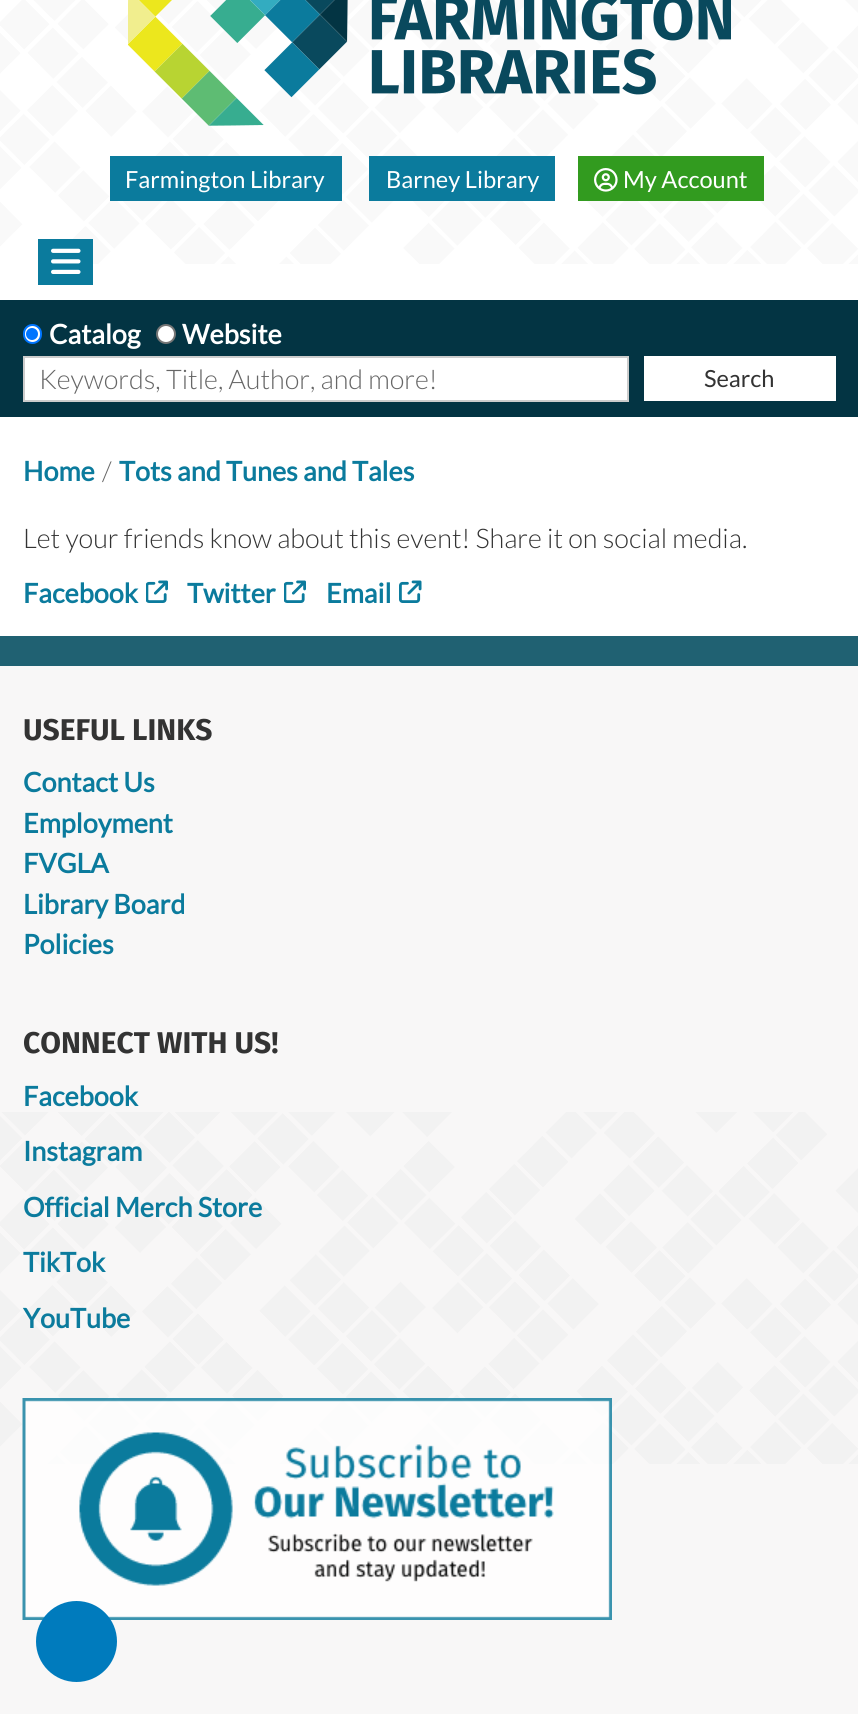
#include <cairo.h>
#include <math.h>
#include <stddef.h>

static cairo_t *c;
static void C(unsigned color){cairo_set_source_rgb(c, (color >> 16) / 255.0, (color >> 8 & 255) / 255.0, (color & 255) / 255.0);}
static void F(const char *family, double size, int italic, int bold){cairo_select_font_face(c, family, italic ? CAIRO_FONT_SLANT_ITALIC : CAIRO_FONT_SLANT_NORMAL,bold ? CAIRO_FONT_WEIGHT_BOLD : CAIRO_FONT_WEIGHT_NORMAL);cairo_set_font_size(c, size);}
static void T(double x, double y, const char *s){cairo_move_to(c, x, y);cairo_show_text(c, s);}
static void R(double x, double y, double w, double h){cairo_rectangle(c, x, y, w, h);cairo_fill(c);}
static void Q(double x, double y, double w, double h, double r){cairo_new_sub_path(c);cairo_arc(c, x + w - r, y + h - r, r, 0, M_PI / 2);cairo_arc(c, x + r, y + h - r, r, M_PI / 2, M_PI);cairo_arc(c, x + r, y + r, r, M_PI, 1.5 * M_PI);cairo_arc(c, x + w - r, y + r, r, 1.5 * M_PI, 2 * M_PI);cairo_close_path(c);}
static void I(const char *path, double x, double y, double w, double h){cairo_surface_t *image = cairo_image_surface_create_from_png(path);cairo_save(c);cairo_set_source_surface(c, image, x, y);cairo_rectangle(c, x, y, w, h);cairo_fill(c);cairo_restore(c);cairo_surface_destroy(image);}
int main(void) {
cairo_surface_t *surface = cairo_image_surface_create(CAIRO_FORMAT_RGB24, 858, 1714);
c = cairo_create(surface);
cairo_font_options_t *options = cairo_font_options_create();
cairo_font_options_set_hint_metrics(options, CAIRO_HINT_METRICS_OFF);
cairo_font_options_set_hint_style(options, CAIRO_HINT_STYLE_NONE);
cairo_set_font_options(c, options);
cairo_set_miter_limit(c, 4);
C(0xffffff);
cairo_paint(c);
I("1.png",0,0,858,264);
I("2.png",128,0,603,126);
C(0x0b7b9d);
R(110,156,232,45);
F("Lato",23.6,0,0);
C(0xffffff);
T(125,188,"Farmington Library");
C(0x0b7b9d);
R(369,156,186,45);
C(0xffffff);
T(386,188,"Barney Library");
C(0x329b1f);
R(578,156,186,45);
I("3.png",594,168,24,24);
C(0xffffff);
T(623,188,"My Account");
C(0x0b7b9d);
R(38,239,55,46);
I("4.png",51,248,30,26);
C(0x033443);
R(0,300,858,117);
C(0xffffff);
Q(24,325,17,18,8.5);
cairo_fill_preserve(c);
C(0x0075ff);
cairo_stroke(c);
cairo_arc(c,32,334,6,0,2 * M_PI);
cairo_fill(c);
F("Lato",27,0,1);
C(0xffffff);
T(49,344,"Catalog");
cairo_new_path(c);
cairo_arc(c,166,334,9,0,2 * M_PI);
cairo_fill_preserve(c);
C(0x767676);
cairo_stroke(c);
C(0xffffff);
T(182,344,"Website");
cairo_rectangle(c,24,357,604,44);
cairo_fill_preserve(c);
C(0xcccccc);
cairo_stroke(c);
F("Lato Light",27,0,0);
C(0x666666);
T(39,389,"Keywords, Title, Author, and more!");
C(0xffffff);
R(644,356,192,45);
F("Lato",23.6,0,0);
C(0x333333);
T(704,387,"Search");
F("Lato",27,0,1);
C(0x0b7b9d);
T(23,481,"Home");
F("Lato Light",27,0,0);
C(0x666666);
T(102,481,"/");
F("Lato",27,0,1);
C(0x0b7b9d);
T(119,481,"Tots and Tunes and Tales");
F("Lato Light",27,0,0);
C(0x333333);
T(23,548,"Let your friends know about this event! Share it on social media.");
F("Lato",27,0,1);
C(0x0b7b9d);
T(23,603,"Facebook");
I("5.png",146,580,22,23);
T(187,603,"Twitter");
I("5.png",284,580,22,23);
T(326,603,"Email");
I("6.png",399,580,23,23);
C(0xf8f7f7);
R(0,666,858,1048);
I("7.png",0,1112,858,352);
C(0x206172);
R(0,636,858,30);
F("Fira Sans",30,0,1);
C(0x333333);
T(23,740,"USEFUL LINKS");
F("Lato",27,0,1);
C(0x0b7b9d);
T(23,792,"Contact Us");
T(23,833,"Employment");
T(23,873,"FVGLA");
T(23,914,"Library Board");
T(23,954,"Policies");
F("Fira Sans",30,0,1);
C(0x333333);
T(23,1053,"CONNECT WITH US!");
F("Lato",27,0,1);
C(0x0b7b9d);
T(23,1106,"Facebook");
T(23,1161,"Instagram");
T(23,1217,"Official Merch Store");
T(23,1272,"TikTok");
T(23,1328,"YouTube");
I("8.png",22,1398,590,222);
C(0x007bbd);
cairo_arc(c,76.5,1641.5,40.5,0,2 * M_PI);
cairo_fill(c);
cairo_surface_write_to_png(surface, "o.png");
cairo_font_options_destroy(options);
cairo_destroy(c);
cairo_surface_destroy(surface);
return 0;
}
